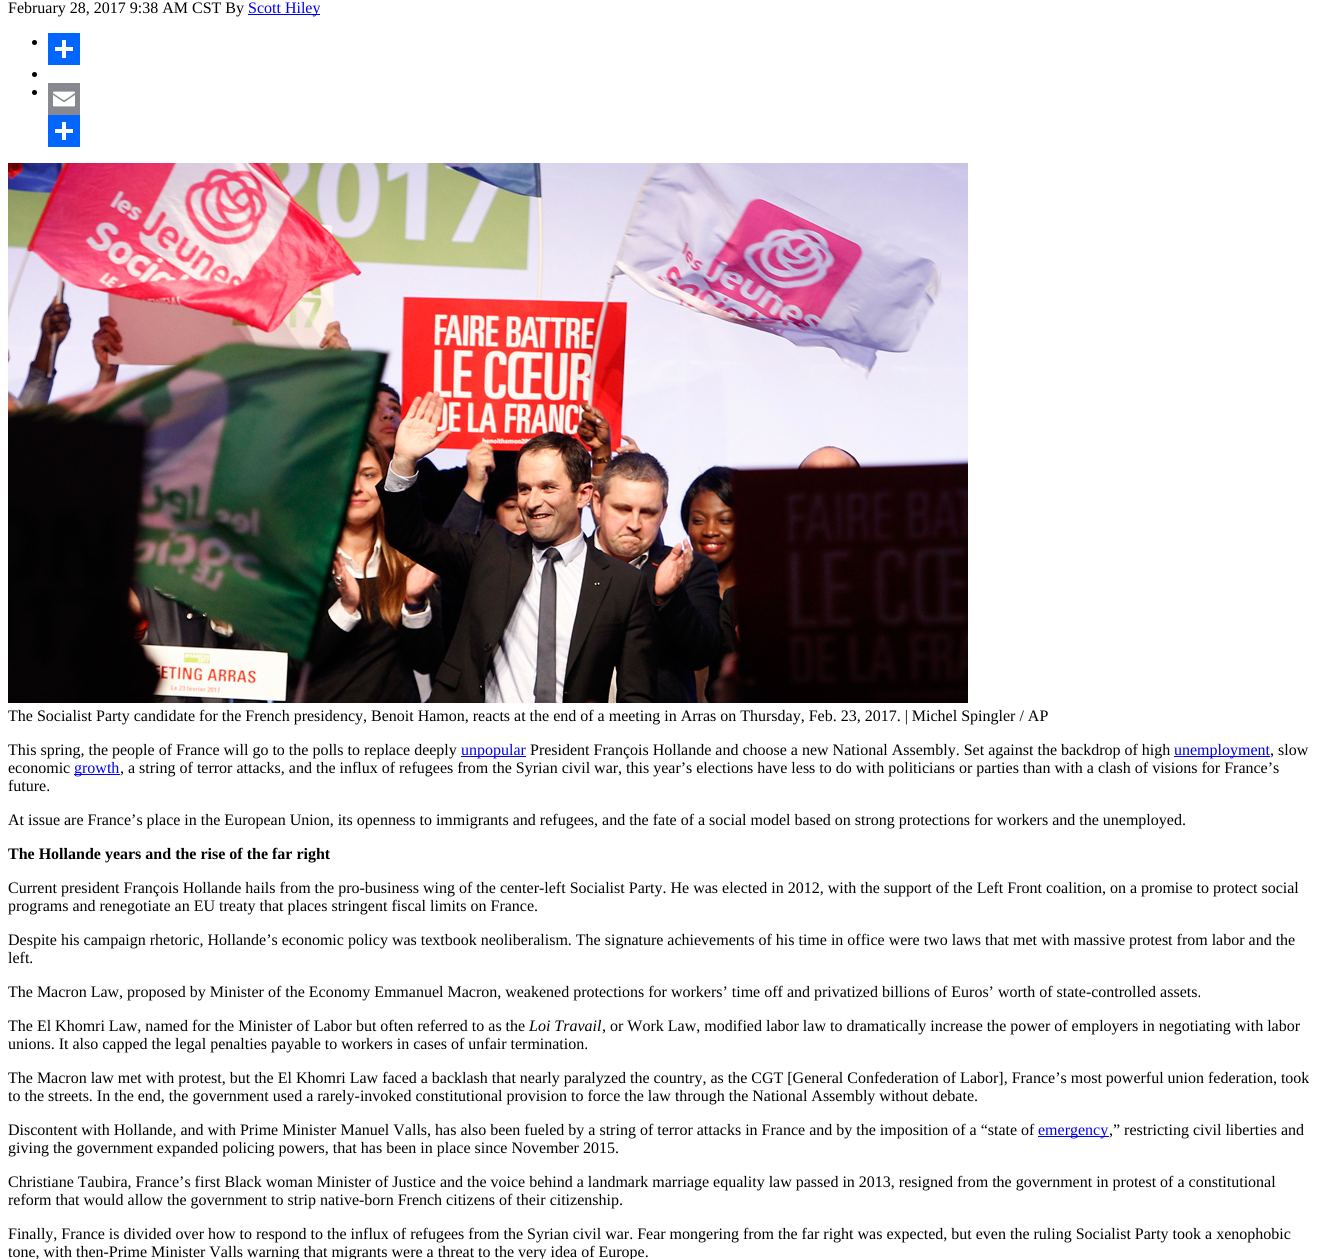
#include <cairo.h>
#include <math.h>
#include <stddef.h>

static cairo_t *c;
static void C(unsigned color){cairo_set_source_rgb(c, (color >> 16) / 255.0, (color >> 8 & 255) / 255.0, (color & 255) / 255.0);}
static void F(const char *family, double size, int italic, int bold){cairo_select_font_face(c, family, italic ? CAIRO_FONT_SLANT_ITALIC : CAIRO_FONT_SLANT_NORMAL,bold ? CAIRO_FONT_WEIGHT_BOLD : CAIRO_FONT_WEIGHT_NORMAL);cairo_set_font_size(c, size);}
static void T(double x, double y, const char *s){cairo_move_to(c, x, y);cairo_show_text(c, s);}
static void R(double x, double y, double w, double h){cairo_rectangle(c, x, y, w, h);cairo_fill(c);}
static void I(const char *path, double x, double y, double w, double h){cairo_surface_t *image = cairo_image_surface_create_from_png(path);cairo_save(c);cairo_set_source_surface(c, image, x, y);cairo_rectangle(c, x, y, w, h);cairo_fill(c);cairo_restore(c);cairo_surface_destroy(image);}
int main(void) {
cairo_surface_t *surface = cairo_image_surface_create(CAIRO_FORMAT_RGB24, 1322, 1259);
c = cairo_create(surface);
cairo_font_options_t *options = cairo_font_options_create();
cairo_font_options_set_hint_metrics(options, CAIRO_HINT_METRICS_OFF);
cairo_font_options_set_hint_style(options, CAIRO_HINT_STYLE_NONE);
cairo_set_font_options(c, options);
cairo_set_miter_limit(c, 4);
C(0xffffff);
cairo_paint(c);
F("Liberation Serif",16,0,0);
C(0x000000);
T(8,13,"February 28, 2017 9:38 AM CST By");
C(0x0000ee);
R(248,14,72,1);
T(248,13,"Scott Hiley");
C(0x000000);
cairo_new_path(c);
cairo_arc(c,34.5,42.5,2.5,0,2 * M_PI);
cairo_fill(c);
C(0x0166ff);
R(48,33,32,32);
C(0xffffff);
R(62,40,4,18);
R(55,47,18,4);
C(0x000000);
cairo_arc(c,34.5,74.5,2.5,0,2 * M_PI);
cairo_fill(c);
cairo_arc(c,34.5,92.5,2.5,0,2 * M_PI);
cairo_fill(c);
C(0x888990);
R(48,83,32,32);
I("1.png",53,91,22,16);
C(0x0166ff);
R(48,115,32,32);
C(0xffffff);
R(62,122,4,18);
R(55,129,18,4);
I("2.png",8,163,960,540);
C(0x000000);
T(8,721,"The Socialist Party candidate for the French presidency, Benoit Hamon, reacts at the end of a meeting in Arras on Thursday, Feb. 23, 2017. | Michel Spingler / AP");
T(8,755,"This spring, the people of France will go to the polls to replace deeply");
C(0x0000ee);
R(461,756,65,1);
T(461,755,"unpopular");
C(0x000000);
T(530,755,"President François Hollande and choose a new National Assembly. Set against the backdrop of high");
C(0x0000ee);
R(1174,756,96,1);
T(1174,755,"unemployment");
C(0x000000);
T(1270,755,", slow");
T(8,773,"economic");
C(0x0000ee);
R(74,774,46,1);
T(74,773,"growth");
C(0x000000);
T(120,773,", a string of terror attacks, and the influx of refugees from the Syrian civil war, this year’s elections have less to do with politicians or parties than with a clash of visions for France’s");
T(8,791,"future.");
T(8,825,"At issue are France’s place in the European Union, its openness to immigrants and refugees, and the fate of a social model based on strong protections for workers and the unemployed.");
F("Liberation Serif",16,0,1);
T(8,859,"The Hollande years and the rise of the far right");
F("Liberation Serif",16,0,0);
T(8,893,"Current president François Hollande hails from the pro-business wing of the center-left Socialist Party. He was elected in 2012, with the support of the Left Front coalition, on a promise to protect social");
T(8,911,"programs and renegotiate an EU treaty that places stringent fiscal limits on France.");
T(8,945,"Despite his campaign rhetoric, Hollande’s economic policy was textbook neoliberalism. The signature achievements of his time in office were two laws that met with massive protest from labor and the");
T(8,963,"left.");
T(8,997,"The Macron Law, proposed by Minister of the Economy Emmanuel Macron, weakened protections for workers’ time off and privatized billions of Euros’ worth of state-controlled assets.");
T(8,1031,"The El Khomri Law, named for the Minister of Labor but often referred to as the");
F("Liberation Serif",16,1,0);
T(529,1031,"Loi Travail");
F("Liberation Serif",16,0,0);
T(602,1031,", or Work Law, modified labor law to dramatically increase the power of employers in negotiating with labor");
T(8,1049,"unions. It also capped the legal penalties payable to workers in cases of unfair termination.");
T(8,1083,"The Macron law met with protest, but the El Khomri Law faced a backlash that nearly paralyzed the country, as the CGT [General Confederation of Labor], France’s most powerful union federation, took");
T(8,1101,"to the streets. In the end, the government used a rarely-invoked constitutional provision to force the law through the National Assembly without debate.");
T(8,1135,"Discontent with Hollande, and with Prime Minister Manuel Valls, has also been fueled by a string of terror attacks in France and by the imposition of a “state of");
C(0x0000ee);
R(1038,1136,71,1);
T(1038,1135,"emergency");
C(0x000000);
T(1109,1135,",” restricting civil liberties and");
T(8,1153,"giving the government expanded policing powers, that has been in place since November 2015.");
T(8,1187,"Christiane Taubira, France’s first Black woman Minister of Justice and the voice behind a landmark marriage equality law passed in 2013, resigned from the government in protest of a constitutional");
T(8,1205,"reform that would allow the government to strip native-born French citizens of their citizenship.");
T(8,1239,"Finally, France is divided over how to respond to the influx of refugees from the Syrian civil war. Fear mongering from the far right was expected, but even the ruling Socialist Party took a xenophobic");
T(8,1257,"tone, with then-Prime Minister Valls warning that migrants were a threat to the very idea of Europe.");
cairo_surface_write_to_png(surface, "o.png");
cairo_font_options_destroy(options);
cairo_destroy(c);
cairo_surface_destroy(surface);
return 0;
}
